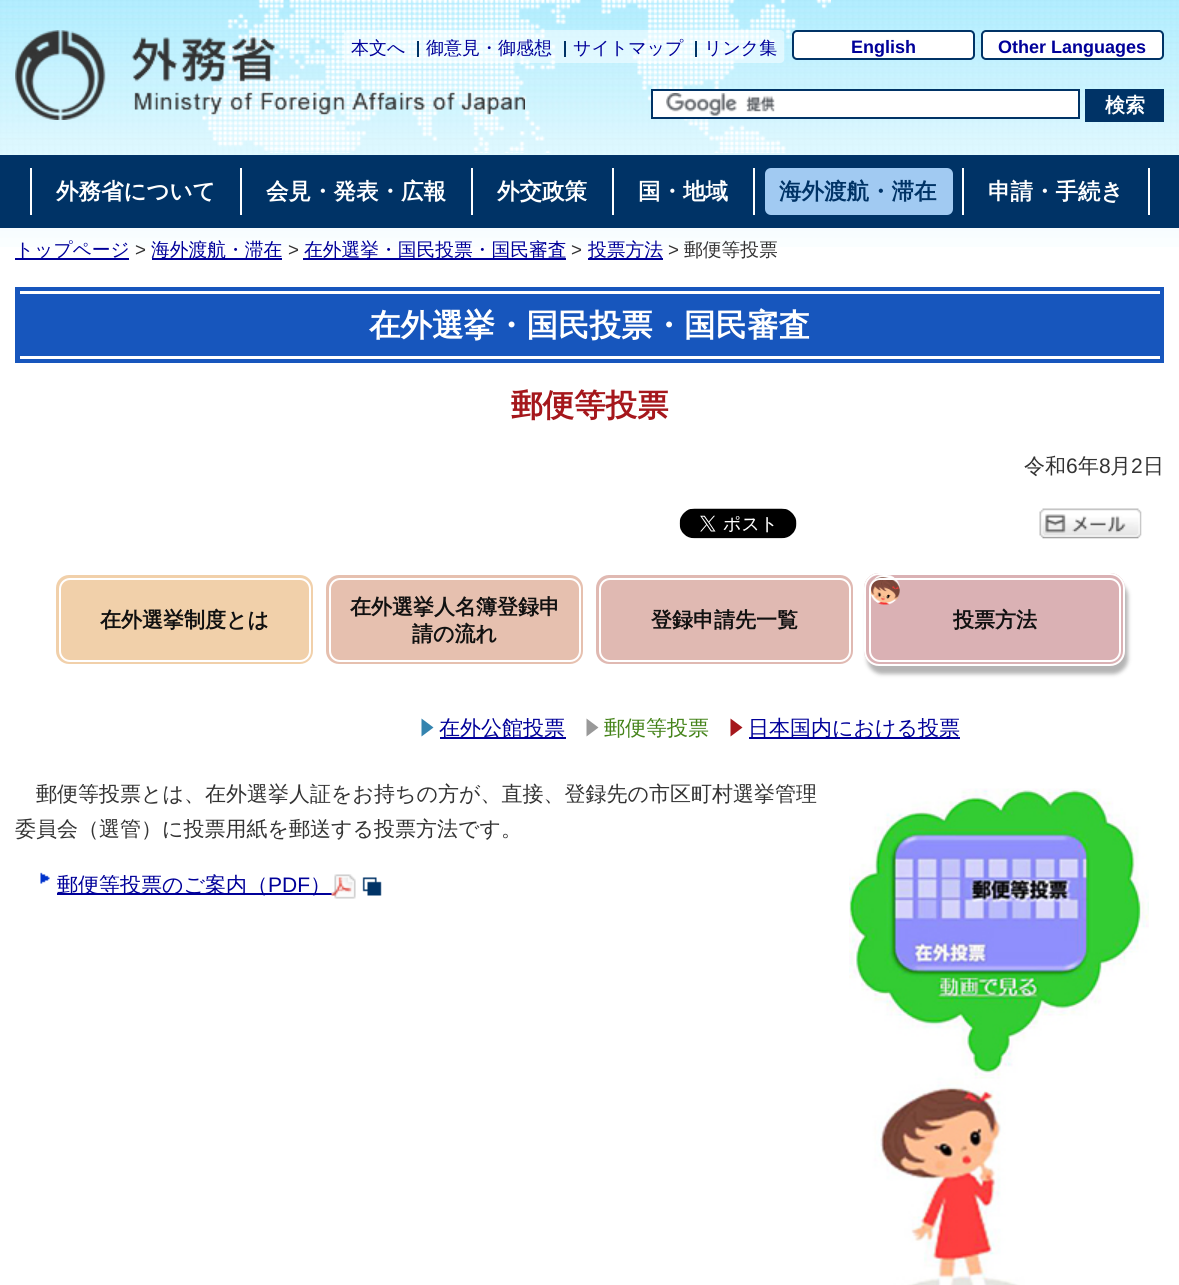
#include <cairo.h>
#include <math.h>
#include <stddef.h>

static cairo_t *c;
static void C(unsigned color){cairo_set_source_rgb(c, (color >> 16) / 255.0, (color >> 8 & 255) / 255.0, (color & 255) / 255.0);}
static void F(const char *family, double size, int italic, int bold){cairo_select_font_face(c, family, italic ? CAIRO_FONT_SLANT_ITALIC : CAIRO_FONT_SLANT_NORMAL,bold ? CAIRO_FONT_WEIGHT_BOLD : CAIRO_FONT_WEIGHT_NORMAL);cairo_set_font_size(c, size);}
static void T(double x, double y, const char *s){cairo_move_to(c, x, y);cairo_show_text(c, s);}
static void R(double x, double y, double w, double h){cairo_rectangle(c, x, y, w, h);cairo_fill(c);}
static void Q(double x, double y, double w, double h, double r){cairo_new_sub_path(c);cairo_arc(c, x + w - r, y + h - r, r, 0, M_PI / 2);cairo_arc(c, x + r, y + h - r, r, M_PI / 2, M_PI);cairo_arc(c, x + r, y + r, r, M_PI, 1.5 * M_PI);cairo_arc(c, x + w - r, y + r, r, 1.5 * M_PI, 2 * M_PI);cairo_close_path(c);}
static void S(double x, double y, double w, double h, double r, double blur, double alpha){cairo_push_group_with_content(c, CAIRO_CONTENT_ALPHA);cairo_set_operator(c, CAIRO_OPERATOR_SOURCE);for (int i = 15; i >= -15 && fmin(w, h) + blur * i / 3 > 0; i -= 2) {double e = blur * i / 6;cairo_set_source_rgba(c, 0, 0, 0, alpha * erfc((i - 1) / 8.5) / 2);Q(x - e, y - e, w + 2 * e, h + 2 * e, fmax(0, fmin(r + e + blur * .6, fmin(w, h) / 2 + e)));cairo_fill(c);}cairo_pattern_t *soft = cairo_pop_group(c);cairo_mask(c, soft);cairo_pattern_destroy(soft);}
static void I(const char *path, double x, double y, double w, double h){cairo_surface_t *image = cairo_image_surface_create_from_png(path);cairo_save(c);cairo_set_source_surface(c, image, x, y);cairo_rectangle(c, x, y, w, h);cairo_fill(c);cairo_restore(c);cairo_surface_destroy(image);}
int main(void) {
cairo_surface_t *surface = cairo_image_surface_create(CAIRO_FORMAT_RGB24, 1179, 1285);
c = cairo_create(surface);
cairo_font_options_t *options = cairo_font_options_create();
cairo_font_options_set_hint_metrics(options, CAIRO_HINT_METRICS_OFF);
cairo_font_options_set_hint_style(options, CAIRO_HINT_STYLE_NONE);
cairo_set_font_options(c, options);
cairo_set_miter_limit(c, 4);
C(0xffffff);
cairo_paint(c);
I("1.png",0,0,1179,247);
I("2.png",202,0,629,153);
I("3.png",15,30,510,90);
I("4.png",343,30,442,33);
F("WenQuanYi Zen Hei Medium",18,0,0);
C(0x000099);
T(351,54,"本文へ");
T(426,54,"御意見・御感想");
C(0x003366);
R(417,41,2,16);
C(0x000099);
T(573,54,"サイトマップ");
C(0x003366);
R(564,41,2,16);
C(0x000099);
T(704,54,"リンク集");
C(0x003366);
R(695,41,2,16);
C(0xffffff);
Q(793,31,181,28,4);
cairo_fill_preserve(c);
C(0x003366);
cairo_stroke(c);
F("Liberation Sans",18,0,1);
C(0x000099);
T(851,53,"English");
C(0xffffff);
Q(982,31,181,28,4);
cairo_fill_preserve(c);
C(0x003366);
cairo_stroke(c);
C(0x000099);
T(998,53,"Other Languages");
C(0xffffff);
R(653,91,425,26);
I("5.png",666,93,109,23);
cairo_rectangle(c,652,90,427,28);
C(0x003366);
cairo_stroke(c);
R(1085,89,79,33);
F("WenQuanYi Zen Hei",20,0,1);
C(0xffffff);
T(1105,112,"検索");
C(0x003366);
R(0,155,1179,73);
C(0xffffff);
R(30,168,2,47);
F("WenQuanYi Zen Hei",22.5,0,1);
T(56,199,"外務省について");
R(240,168,2,47);
T(266,199,"会見・発表・広報");
R(471,168,2,47);
T(497,199,"外交政策");
R(612,168,2,47);
T(638,199,"国・地域");
R(753,168,2,47);
C(0xa1caf2);
Q(765,168,188,47,6);
cairo_fill(c);
C(0x003366);
T(779,199,"海外渡航・滞在");
C(0xffffff);
R(962,168,2,47);
T(988,199,"申請・手続き");
R(1148,168,2,47);
C(0x000099);
R(15,258,114,2);
F("WenQuanYi Zen Hei Medium",18.75,0,0);
T(15,256,"トップページ");
F("Liberation Sans",18.75,0,0);
C(0x333333);
T(135,256,">");
C(0x000099);
R(152,258,130,2);
F("WenQuanYi Zen Hei Medium",18.75,0,0);
T(151,256,"海外渡航・滞在");
F("Liberation Sans",18.75,0,0);
C(0x333333);
T(288,256,">");
C(0x000099);
R(303,258,263,2);
F("WenQuanYi Zen Hei Medium",18.75,0,0);
T(304,256,"在外選挙・国民投票・国民審査");
F("Liberation Sans",18.75,0,0);
C(0x333333);
T(571,256,">");
C(0x000099);
R(588,258,75,2);
F("WenQuanYi Zen Hei Medium",18.75,0,0);
T(588,256,"投票方法");
F("Liberation Sans",18.75,0,0);
C(0x333333);
T(668,256,">");
F("WenQuanYi Zen Hei Medium",18.75,0,0);
T(684,256,"郵便等投票");
C(0x1756bd);
R(15,287,1149,76);
C(0xffffff);
R(20,291,1140,3);
R(20,356,1140,3);
F("WenQuanYi Zen Hei",31.5,0,1);
T(369,336,"在外選挙・国民投票・国民審査");
C(0xa5171c);
T(511,416,"郵便等投票");
F("WenQuanYi Zen Hei Medium",21,0,0);
C(0x333333);
T(1024,473,"令和");
F("Liberation Sans",21,0,0);
T(1066,473,"6");
F("WenQuanYi Zen Hei Medium",21,0,0);
T(1078,473,"年");
F("Liberation Sans",21,0,0);
T(1099,473,"8");
F("WenQuanYi Zen Hei Medium",21,0,0);
T(1110,473,"月");
F("Liberation Sans",21,0,0);
T(1131,473,"2");
F("WenQuanYi Zen Hei Medium",21,0,0);
T(1143,473,"日");
I("6.png",679,508,118,31);
I("7.png",1039,508,103,31);
C(0xf1d0aa);
Q(55,574,259,91,14);
cairo_fill_preserve(c);
C(0xffffff);
cairo_stroke(c);
Q(60,579,250,82,10);
cairo_stroke(c);
F("WenQuanYi Zen Hei",21,0,1);
C(0x111111);
T(100,627,"在外選挙制度とは");
C(0xe6c0af);
Q(325,574,259,91,14);
cairo_fill_preserve(c);
C(0xffffff);
cairo_stroke(c);
Q(330,579,250,82,10);
cairo_stroke(c);
C(0x111111);
T(350,614,"在外選挙人名簿登録申");
T(412,641,"請の流れ");
C(0xe0b9b2);
Q(595,574,259,91,14);
cairo_fill_preserve(c);
C(0xffffff);
cairo_stroke(c);
Q(600,579,250,82,10);
cairo_stroke(c);
C(0x111111);
T(651,627,"登録申請先一覧");
C(0xa9a9a9);
S(867,581,261,93,15,2,.87);
C(0xdab1b4);
Q(864,573,261,93,15);
cairo_fill(c);
I("8.png",870,575,30,30);
Q(865,574,259,91,14);
C(0xffffff);
cairo_stroke(c);
Q(870,579,250,82,10);
cairo_stroke(c);
C(0x111111);
T(953,627,"投票方法");
C(0x3484af);
cairo_new_path(c);
cairo_move_to(c,421.5,736.5);
cairo_line_to(c,421.5,718.5);
cairo_line_to(c,433.5,727.5);
cairo_close_path(c);
cairo_fill(c);
C(0x000099);
R(440,737,126,2);
F("WenQuanYi Zen Hei Medium",21,0,0);
T(439,735,"在外公館投票");
C(0x999999);
cairo_new_path(c);
cairo_move_to(c,586.5,736.5);
cairo_line_to(c,586.5,718.5);
cairo_line_to(c,598.5,727.5);
cairo_close_path(c);
cairo_fill(c);
C(0x448319);
T(604,735,"郵便等投票");
C(0xa5171c);
cairo_new_path(c);
cairo_move_to(c,730.5,736.5);
cairo_line_to(c,730.5,718.5);
cairo_line_to(c,742.5,727.5);
cairo_close_path(c);
cairo_fill(c);
C(0x000099);
R(749,737,211,2);
T(748,735,"日本国内における投票");
C(0x333333);
T(36,801,"郵便等投票とは、在外選挙人証をお持ちの方が、直接、登録先の市区町村選挙管理");
T(15,836,"委員会（選管）に投票用紙を郵送する投票方法です。");
I("9.png",849,788,300,497);
I("10.png",40,872,10,12);
C(0x000099);
R(57,893,275,2);
T(57,892,"郵便等投票のご案内（");
F("Liberation Sans",21,0,0);
T(268,892,"PDF");
F("WenQuanYi Zen Hei Medium",21,0,0);
T(310,892,"）");
I("11.png",331,874,51,25);
cairo_surface_write_to_png(surface, "o.png");
cairo_font_options_destroy(options);
cairo_destroy(c);
cairo_surface_destroy(surface);
return 0;
}
